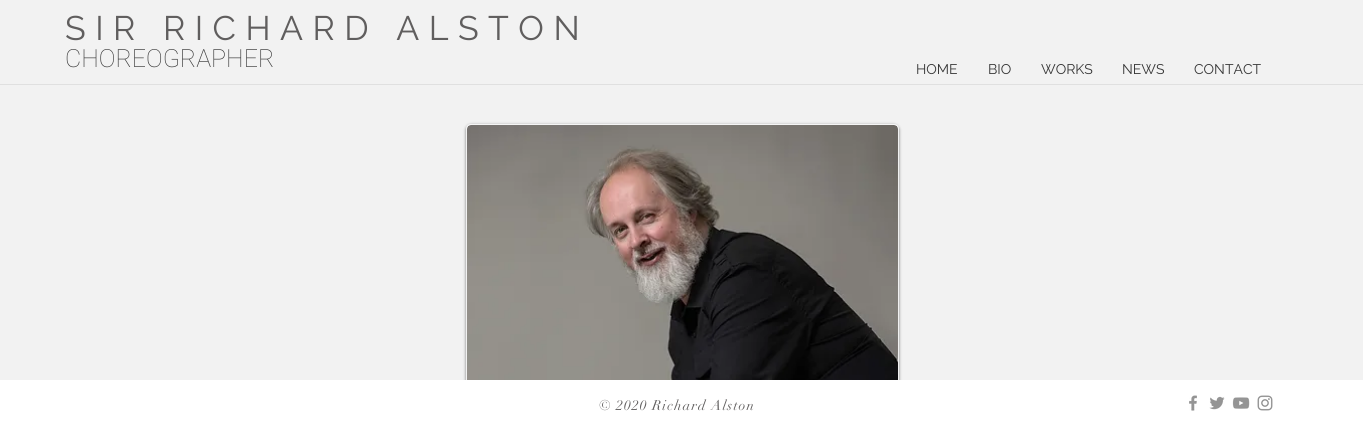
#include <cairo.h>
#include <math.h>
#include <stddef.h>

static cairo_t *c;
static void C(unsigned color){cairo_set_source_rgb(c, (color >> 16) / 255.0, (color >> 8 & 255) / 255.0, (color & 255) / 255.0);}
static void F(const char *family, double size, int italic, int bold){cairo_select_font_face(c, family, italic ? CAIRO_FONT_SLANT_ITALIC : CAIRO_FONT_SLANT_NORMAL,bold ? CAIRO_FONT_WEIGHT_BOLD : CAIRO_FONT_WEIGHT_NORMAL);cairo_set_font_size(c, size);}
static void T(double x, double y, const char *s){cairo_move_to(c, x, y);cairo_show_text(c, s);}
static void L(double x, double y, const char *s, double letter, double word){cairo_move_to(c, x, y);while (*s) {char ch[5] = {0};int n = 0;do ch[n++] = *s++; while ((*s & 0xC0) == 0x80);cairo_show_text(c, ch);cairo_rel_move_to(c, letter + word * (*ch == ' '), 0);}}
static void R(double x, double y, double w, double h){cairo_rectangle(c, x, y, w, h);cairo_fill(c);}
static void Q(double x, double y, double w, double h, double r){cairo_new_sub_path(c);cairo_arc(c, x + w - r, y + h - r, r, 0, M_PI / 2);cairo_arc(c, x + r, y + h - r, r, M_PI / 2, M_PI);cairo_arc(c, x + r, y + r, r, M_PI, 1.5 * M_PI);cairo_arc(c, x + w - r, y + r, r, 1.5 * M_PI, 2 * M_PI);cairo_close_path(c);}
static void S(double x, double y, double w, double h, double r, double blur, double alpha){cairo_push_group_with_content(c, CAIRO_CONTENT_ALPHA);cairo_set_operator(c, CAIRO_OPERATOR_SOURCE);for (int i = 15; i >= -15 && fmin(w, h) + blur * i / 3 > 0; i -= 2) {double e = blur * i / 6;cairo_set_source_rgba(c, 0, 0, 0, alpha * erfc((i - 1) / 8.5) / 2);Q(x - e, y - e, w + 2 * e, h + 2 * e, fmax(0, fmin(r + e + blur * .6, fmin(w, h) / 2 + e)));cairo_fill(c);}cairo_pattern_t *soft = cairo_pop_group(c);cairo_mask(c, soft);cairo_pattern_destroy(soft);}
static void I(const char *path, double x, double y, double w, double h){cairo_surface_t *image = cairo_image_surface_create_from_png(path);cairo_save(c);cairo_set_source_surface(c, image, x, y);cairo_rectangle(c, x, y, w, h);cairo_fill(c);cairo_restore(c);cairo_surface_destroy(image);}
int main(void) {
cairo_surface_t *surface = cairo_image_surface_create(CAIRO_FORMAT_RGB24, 1363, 432);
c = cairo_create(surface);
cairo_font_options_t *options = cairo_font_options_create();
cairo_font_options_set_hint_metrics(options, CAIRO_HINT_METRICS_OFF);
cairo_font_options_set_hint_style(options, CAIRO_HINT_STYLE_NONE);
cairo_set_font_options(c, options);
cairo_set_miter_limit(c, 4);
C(0xf2f2f2);
cairo_paint(c);
cairo_save(c);
cairo_rectangle(c,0,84,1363,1);
cairo_clip(c);
C(0x000000);
S(-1,-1,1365,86,0,.5,.09);
cairo_restore(c);
F("Raleway",34,0,0);
C(0x605e5e);
L(65,40,"SIR RICHARD ALSTON",9.5,0);
F("Roboto Thin",25,0,0);
C(0x363636);
T(65,67,"CHOREOGRAPHER");
F("Raleway",14,0,0);
T(916,74,"HOME");
T(988,74,"BIO");
T(1041,74,"WORKS");
T(1122,74,"NEWS");
T(1194,74,"CONTACT");
C(0x000000);
S(466,125,433,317,5,1.5,.5);
cairo_set_source_rgba(c,1,1,1,0.6);
Q(466,124,433,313,5);
cairo_fill(c);
Q(466.5,124.5,432,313,4.5);
cairo_set_line_width(c,1);
cairo_stroke(c);
I("1.png",467,125,431,255);
C(0xffffff);
R(0,380,1363,52);
I("2.png",1189,395,8,16);
I("3.png",1209,396,16,14);
I("4.png",1232,397,18,12);
I("5.png",1257,395,16,16);
F("didot",14,0,0);
C(0x605e5e);
L(599,410,"© 2020 Richard Alston",1.1,0);
cairo_surface_write_to_png(surface, "o.png");
cairo_font_options_destroy(options);
cairo_destroy(c);
cairo_surface_destroy(surface);
return 0;
}
